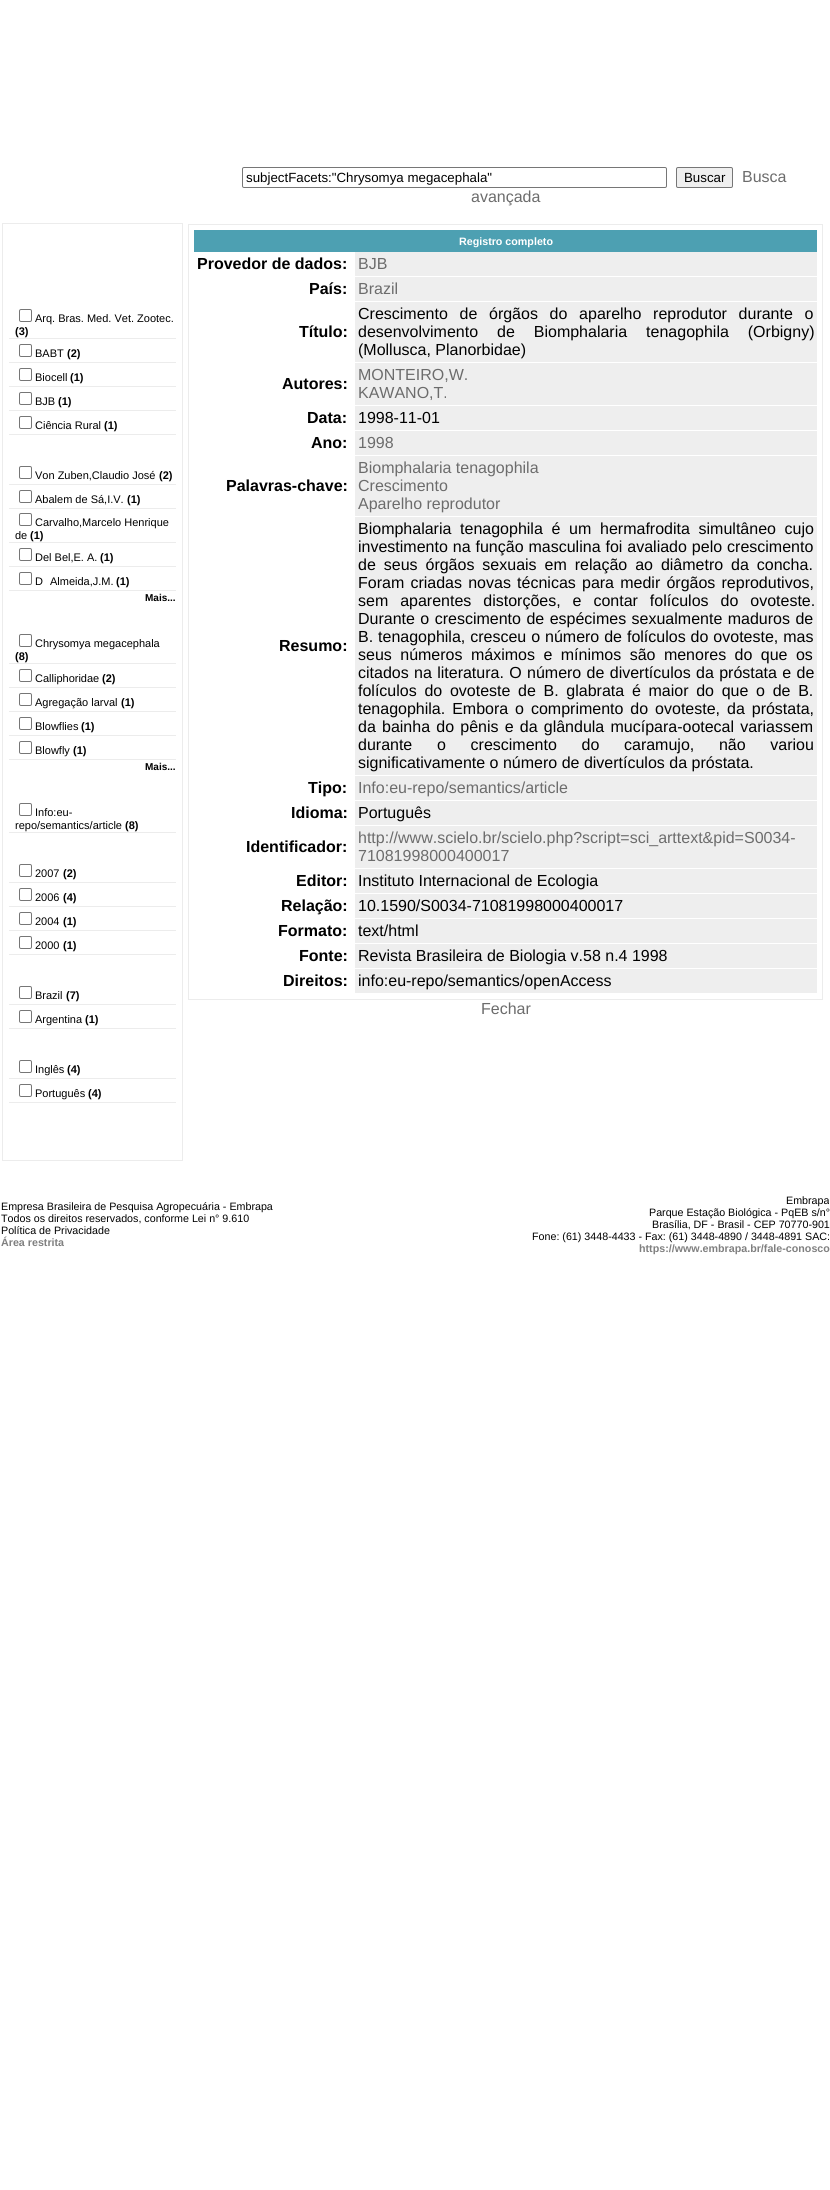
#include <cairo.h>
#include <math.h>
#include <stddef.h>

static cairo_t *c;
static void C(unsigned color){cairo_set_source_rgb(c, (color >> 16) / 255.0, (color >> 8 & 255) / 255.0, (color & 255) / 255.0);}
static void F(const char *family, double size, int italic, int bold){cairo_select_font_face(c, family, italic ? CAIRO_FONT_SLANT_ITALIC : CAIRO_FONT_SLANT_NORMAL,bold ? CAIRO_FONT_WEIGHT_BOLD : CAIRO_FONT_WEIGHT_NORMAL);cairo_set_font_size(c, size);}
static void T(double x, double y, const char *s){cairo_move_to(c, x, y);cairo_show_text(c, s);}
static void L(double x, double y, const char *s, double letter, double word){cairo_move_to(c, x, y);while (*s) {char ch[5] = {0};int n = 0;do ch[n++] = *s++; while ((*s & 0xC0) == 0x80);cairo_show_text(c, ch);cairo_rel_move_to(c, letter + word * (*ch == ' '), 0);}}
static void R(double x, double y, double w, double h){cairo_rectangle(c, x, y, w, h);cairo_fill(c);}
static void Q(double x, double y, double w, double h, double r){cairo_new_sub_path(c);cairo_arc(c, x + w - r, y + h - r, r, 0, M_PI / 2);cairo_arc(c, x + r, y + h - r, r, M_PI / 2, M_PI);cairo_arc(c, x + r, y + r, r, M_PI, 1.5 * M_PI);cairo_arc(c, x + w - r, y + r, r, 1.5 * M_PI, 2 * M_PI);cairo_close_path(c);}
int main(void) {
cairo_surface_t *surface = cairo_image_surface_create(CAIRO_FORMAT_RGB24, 830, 2190);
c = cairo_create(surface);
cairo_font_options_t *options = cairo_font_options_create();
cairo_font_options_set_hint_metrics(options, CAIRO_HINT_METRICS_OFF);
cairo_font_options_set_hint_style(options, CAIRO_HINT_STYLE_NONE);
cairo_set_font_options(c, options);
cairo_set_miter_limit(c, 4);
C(0xffffff);
cairo_paint(c);
Q(242.5,167.5,424,20,1.5);
C(0x767676);
cairo_set_line_width(c,1);
cairo_stroke(c);
F("Liberation Sans",13.3,0,0);
C(0x000000);
T(246,182,"subjectFacets:\"Chrysomya megacephala\"");
C(0xefefef);
Q(676.5,167.5,56,20,1.5);
cairo_fill_preserve(c);
C(0x767676);
cairo_stroke(c);
C(0x000000);
T(684,182,"Buscar");
F("Liberation Sans",16,0,0);
C(0x6c6c6c);
T(742,182,"Busca");
T(471,202,"avançada");
C(0xececec);
R(2,223,181,938);
C(0xffffff);
R(3,224,179,936);
C(0xececec);
R(9,338,167,1);
Q(19.5,309.5,12,12,1.5);
C(0x767676);
cairo_stroke(c);
F("Liberation Sans",11,0,0);
C(0x000000);
T(35,322,"Arq. Bras. Med. Vet. Zootec.");
F("Liberation Sans",11,0,1);
T(15,335,"(3)");
C(0xececec);
R(9,362,167,1);
Q(19.5,344.5,12,12,1.5);
C(0x767676);
cairo_stroke(c);
F("Liberation Sans",11,0,0);
C(0x000000);
T(35,357,"BABT");
F("Liberation Sans",11,0,1);
T(67,357,"(2)");
C(0xececec);
R(9,386,167,1);
Q(19.5,368.5,12,12,1.5);
C(0x767676);
cairo_stroke(c);
F("Liberation Sans",11,0,0);
C(0x000000);
T(35,381,"Biocell");
F("Liberation Sans",11,0,1);
T(70,381,"(1)");
C(0xececec);
R(9,410,167,1);
Q(19.5,392.5,12,12,1.5);
C(0x767676);
cairo_stroke(c);
F("Liberation Sans",11,0,0);
C(0x000000);
T(35,405,"BJB");
F("Liberation Sans",11,0,1);
T(58,405,"(1)");
C(0xececec);
R(9,434,167,1);
Q(19.5,416.5,12,12,1.5);
C(0x767676);
cairo_stroke(c);
F("Liberation Sans",11,0,0);
C(0x000000);
T(35,429,"Ciência Rural");
F("Liberation Sans",11,0,1);
T(104,429,"(1)");
C(0xececec);
R(9,484,167,1);
Q(19.5,466.5,12,12,1.5);
C(0x767676);
cairo_stroke(c);
F("Liberation Sans",11,0,0);
C(0x000000);
T(35,479,"Von Zuben,Claudio José");
F("Liberation Sans",11,0,1);
T(159,479,"(2)");
C(0xececec);
R(9,508,167,1);
Q(19.5,490.5,12,12,1.5);
C(0x767676);
cairo_stroke(c);
F("Liberation Sans",11,0,0);
C(0x000000);
T(35,503,"Abalem de Sá,I.V.");
F("Liberation Sans",11,0,1);
T(127,503,"(1)");
C(0xececec);
R(9,542,167,1);
Q(19.5,513.5,12,12,1.5);
C(0x767676);
cairo_stroke(c);
F("Liberation Sans",11,0,0);
C(0x000000);
T(35,526,"Carvalho,Marcelo Henrique");
T(15,539,"de");
F("Liberation Sans",11,0,1);
T(30,539,"(1)");
C(0xececec);
R(9,566,167,1);
Q(19.5,548.5,12,12,1.5);
C(0x767676);
cairo_stroke(c);
F("Liberation Sans",11,0,0);
C(0x000000);
T(35,561,"Del Bel,E. A.");
F("Liberation Sans",11,0,1);
T(100,561,"(1)");
C(0xececec);
R(9,590,167,1);
Q(19.5,572.5,12,12,1.5);
C(0x767676);
cairo_stroke(c);
F("Liberation Sans",11,0,0);
C(0x000000);
T(35,585,"D");
T(50,585,"Almeida,J.M.");
F("Liberation Sans",11,0,1);
T(116,585,"(1)");
F("Liberation Sans",10,0,1);
T(145,601,"Mais...");
C(0xececec);
R(9,663,167,1);
Q(19.5,634.5,12,12,1.5);
C(0x767676);
cairo_stroke(c);
F("Liberation Sans",11,0,0);
C(0x000000);
T(35,647,"Chrysomya megacephala");
F("Liberation Sans",11,0,1);
T(15,660,"(8)");
C(0xececec);
R(9,687,167,1);
Q(19.5,669.5,12,12,1.5);
C(0x767676);
cairo_stroke(c);
F("Liberation Sans",11,0,0);
C(0x000000);
T(35,682,"Calliphoridae");
F("Liberation Sans",11,0,1);
T(102,682,"(2)");
C(0xececec);
R(9,711,167,1);
Q(19.5,693.5,12,12,1.5);
C(0x767676);
cairo_stroke(c);
F("Liberation Sans",11,0,0);
C(0x000000);
T(35,706,"Agregação larval");
F("Liberation Sans",11,0,1);
T(121,706,"(1)");
C(0xececec);
R(9,735,167,1);
Q(19.5,717.5,12,12,1.5);
C(0x767676);
cairo_stroke(c);
F("Liberation Sans",11,0,0);
C(0x000000);
T(35,730,"Blowflies");
F("Liberation Sans",11,0,1);
T(81,730,"(1)");
C(0xececec);
R(9,759,167,1);
Q(19.5,741.5,12,12,1.5);
C(0x767676);
cairo_stroke(c);
F("Liberation Sans",11,0,0);
C(0x000000);
T(35,754,"Blowfly");
F("Liberation Sans",11,0,1);
T(73,754,"(1)");
F("Liberation Sans",10,0,1);
T(145,770,"Mais...");
C(0xececec);
R(9,832,167,1);
Q(19.5,803.5,12,12,1.5);
C(0x767676);
cairo_stroke(c);
F("Liberation Sans",11,0,0);
C(0x000000);
T(35,816,"Info:eu-");
T(15,829,"repo/semantics/article");
F("Liberation Sans",11,0,1);
T(125,829,"(8)");
C(0xececec);
R(9,882,167,1);
Q(19.5,864.5,12,12,1.5);
C(0x767676);
cairo_stroke(c);
F("Liberation Sans",11,0,0);
C(0x000000);
T(35,877,"2007");
F("Liberation Sans",11,0,1);
T(63,877,"(2)");
C(0xececec);
R(9,906,167,1);
Q(19.5,888.5,12,12,1.5);
C(0x767676);
cairo_stroke(c);
F("Liberation Sans",11,0,0);
C(0x000000);
T(35,901,"2006");
F("Liberation Sans",11,0,1);
T(63,901,"(4)");
C(0xececec);
R(9,930,167,1);
Q(19.5,912.5,12,12,1.5);
C(0x767676);
cairo_stroke(c);
F("Liberation Sans",11,0,0);
C(0x000000);
T(35,925,"2004");
F("Liberation Sans",11,0,1);
T(63,925,"(1)");
C(0xececec);
R(9,954,167,1);
Q(19.5,936.5,12,12,1.5);
C(0x767676);
cairo_stroke(c);
F("Liberation Sans",11,0,0);
C(0x000000);
T(35,949,"2000");
F("Liberation Sans",11,0,1);
T(63,949,"(1)");
C(0xececec);
R(9,1004,167,1);
Q(19.5,986.5,12,12,1.5);
C(0x767676);
cairo_stroke(c);
F("Liberation Sans",11,0,0);
C(0x000000);
T(35,999,"Brazil");
F("Liberation Sans",11,0,1);
T(66,999,"(7)");
C(0xececec);
R(9,1028,167,1);
Q(19.5,1010.5,12,12,1.5);
C(0x767676);
cairo_stroke(c);
F("Liberation Sans",11,0,0);
C(0x000000);
T(35,1023,"Argentina");
F("Liberation Sans",11,0,1);
T(85,1023,"(1)");
C(0xececec);
R(9,1078,167,1);
Q(19.5,1060.5,12,12,1.5);
C(0x767676);
cairo_stroke(c);
F("Liberation Sans",11,0,0);
C(0x000000);
T(35,1073,"Inglês");
F("Liberation Sans",11,0,1);
T(67,1073,"(4)");
C(0xececec);
R(9,1102,167,1);
Q(19.5,1084.5,12,12,1.5);
C(0x767676);
cairo_stroke(c);
F("Liberation Sans",11,0,0);
C(0x000000);
T(35,1097,"Português");
F("Liberation Sans",11,0,1);
T(88,1097,"(4)");
cairo_rectangle(c,188.5,224.5,634,775);
C(0xececec);
cairo_stroke(c);
C(0x4da0b2);
R(194,230,623,22);
F("Liberation Sans",10.7,0,1);
C(0xffffff);
T(459,245,"Registro completo");
F("Liberation Sans",16,0,1);
C(0x000000);
T(197,269,"Provedor de dados:");
C(0xeeeeee);
R(355,252,462,24);
F("Liberation Sans",16,0,0);
C(0x6c6c6c);
T(358,269,"BJB");
F("Liberation Sans",16,0,1);
C(0x000000);
T(309,294,"País:");
C(0xeeeeee);
R(355,277,462,24);
F("Liberation Sans",16,0,0);
C(0x6c6c6c);
T(358,294,"Brazil");
F("Liberation Sans",16,0,1);
C(0x000000);
T(299,337,"Título:");
C(0xeeeeee);
R(355,302,462,60);
F("Liberation Sans",16,0,0);
C(0x000000);
L(358,319,"Crescimento de órgãos do aparelho reprodutor durante o",0,7.25);
L(358,337,"desenvolvimento de Biomphalaria tenagophila (Orbigny)",0,14.5);
T(358,355,"(Mollusca, Planorbidae)");
F("Liberation Sans",16,0,1);
T(282,389,"Autores:");
C(0xeeeeee);
R(355,363,462,42);
F("Liberation Sans",16,0,0);
C(0x6c6c6c);
T(358,380,"MONTEIRO,W.");
T(358,398,"KAWANO,T.");
F("Liberation Sans",16,0,1);
C(0x000000);
T(307,423,"Data:");
C(0xeeeeee);
R(355,406,462,24);
F("Liberation Sans",16,0,0);
C(0x000000);
T(358,423,"1998-11-01");
F("Liberation Sans",16,0,1);
T(311,448,"Ano:");
C(0xeeeeee);
R(355,431,462,24);
F("Liberation Sans",16,0,0);
C(0x6c6c6c);
T(358,448,"1998");
F("Liberation Sans",16,0,1);
C(0x000000);
T(226,491,"Palavras-chave:");
C(0xeeeeee);
R(355,456,462,60);
F("Liberation Sans",16,0,0);
C(0x6c6c6c);
T(358,473,"Biomphalaria tenagophila");
T(358,491,"Crescimento");
T(358,509,"Aparelho reprodutor");
F("Liberation Sans",16,0,1);
C(0x000000);
T(279,651,"Resumo:");
C(0xeeeeee);
R(355,517,462,258);
F("Liberation Sans",16,0,0);
C(0x000000);
L(358,534,"Biomphalaria tenagophila é um hermafrodita simultâneo cujo",0,4.25);
L(358,552,"investimento na função masculina foi avaliado pelo crescimento",0,.5);
L(358,570,"de seus órgãos sexuais em relação ao diâmetro da concha.",0,3.5);
L(358,588,"Foram criadas novas técnicas para medir órgãos reprodutivos,",0,1.75);
L(358,606,"sem aparentes distorções, e contar folículos do ovoteste.",0,7.5);
L(358,624,"Durante o crescimento de espécimes sexualmente maduros de",0,1);
L(358,642,"B. tenagophila, cresceu o número de folículos do ovoteste, mas",0,.5);
L(358,660,"seus números máximos e mínimos são menores do que os",0,4);
L(358,678,"citados na literatura. O número de divertículos da próstata e de",0,.9);
L(358,696,"folículos do ovoteste de B. glabrata é maior do que o de B.",0,3.25);
L(358,714,"tenagophila. Embora o comprimento do ovoteste, da próstata,",0,2.5);
L(358,732,"da bainha do pênis e da glândula mucípara-ootecal variassem",0,1.75);
L(358,750,"durante o crescimento do caramujo, não variou",0,20.25);
T(358,768,"significativamente o número de divertículos da próstata.");
F("Liberation Sans",16,0,1);
T(308,793,"Tipo:");
C(0xeeeeee);
R(355,776,462,24);
F("Liberation Sans",16,0,0);
C(0x6c6c6c);
T(358,793,"Info:eu-repo/semantics/article");
F("Liberation Sans",16,0,1);
C(0x000000);
T(291,818,"Idioma:");
C(0xeeeeee);
R(355,801,462,24);
F("Liberation Sans",16,0,0);
C(0x000000);
T(358,818,"Português");
F("Liberation Sans",16,0,1);
T(246,852,"Identificador:");
C(0xeeeeee);
R(355,826,462,42);
F("Liberation Sans",16,0,0);
C(0x6c6c6c);
T(358,843,"http://www.scielo.br/scielo.php?script=sci_arttext&pid=S0034-");
T(358,861,"71081998000400017");
F("Liberation Sans",16,0,1);
C(0x000000);
T(296,886,"Editor:");
C(0xeeeeee);
R(355,869,462,24);
F("Liberation Sans",16,0,0);
C(0x000000);
T(358,886,"Instituto Internacional de Ecologia");
F("Liberation Sans",16,0,1);
T(281,911,"Relação:");
C(0xeeeeee);
R(355,894,462,24);
F("Liberation Sans",16,0,0);
C(0x000000);
T(358,911,"10.1590/S0034-71081998000400017");
F("Liberation Sans",16,0,1);
T(278,936,"Formato:");
C(0xeeeeee);
R(355,919,462,24);
F("Liberation Sans",16,0,0);
C(0x000000);
T(358,936,"text/html");
F("Liberation Sans",16,0,1);
T(299,961,"Fonte:");
C(0xeeeeee);
R(355,944,462,24);
F("Liberation Sans",16,0,0);
C(0x000000);
T(358,961,"Revista Brasileira de Biologia v.58 n.4 1998");
F("Liberation Sans",16,0,1);
T(283,986,"Direitos:");
C(0xeeeeee);
R(355,969,462,24);
F("Liberation Sans",16,0,0);
C(0x000000);
T(358,986,"info:eu-repo/semantics/openAccess");
C(0x6c6c6c);
T(481,1014,"Fechar");
F("Liberation Sans",10.7,0,0);
C(0x000000);
T(1,1210,"Empresa Brasileira de Pesquisa Agropecuária - Embrapa");
T(1,1222,"Todos os direitos reservados, conforme Lei n° 9.610");
T(1,1234,"Política de Privacidade");
F("Liberation Sans",10.7,0,1);
C(0x808080);
T(1,1246,"Área restrita");
F("Liberation Sans",10.7,0,0);
C(0x000000);
T(786,1204,"Embrapa");
T(649,1216,"Parque Estação Biológica - PqEB s/n°");
T(652,1228,"Brasília, DF - Brasil - CEP 70770-901");
T(532,1240,"Fone: (61) 3448-4433 - Fax: (61) 3448-4890 / 3448-4891 SAC:");
F("Liberation Sans",10.7,0,1);
C(0x808080);
T(639,1252,"https://www.embrapa.br/fale-conosco");
cairo_surface_write_to_png(surface, "o.png");
cairo_font_options_destroy(options);
cairo_destroy(c);
cairo_surface_destroy(surface);
return 0;
}
